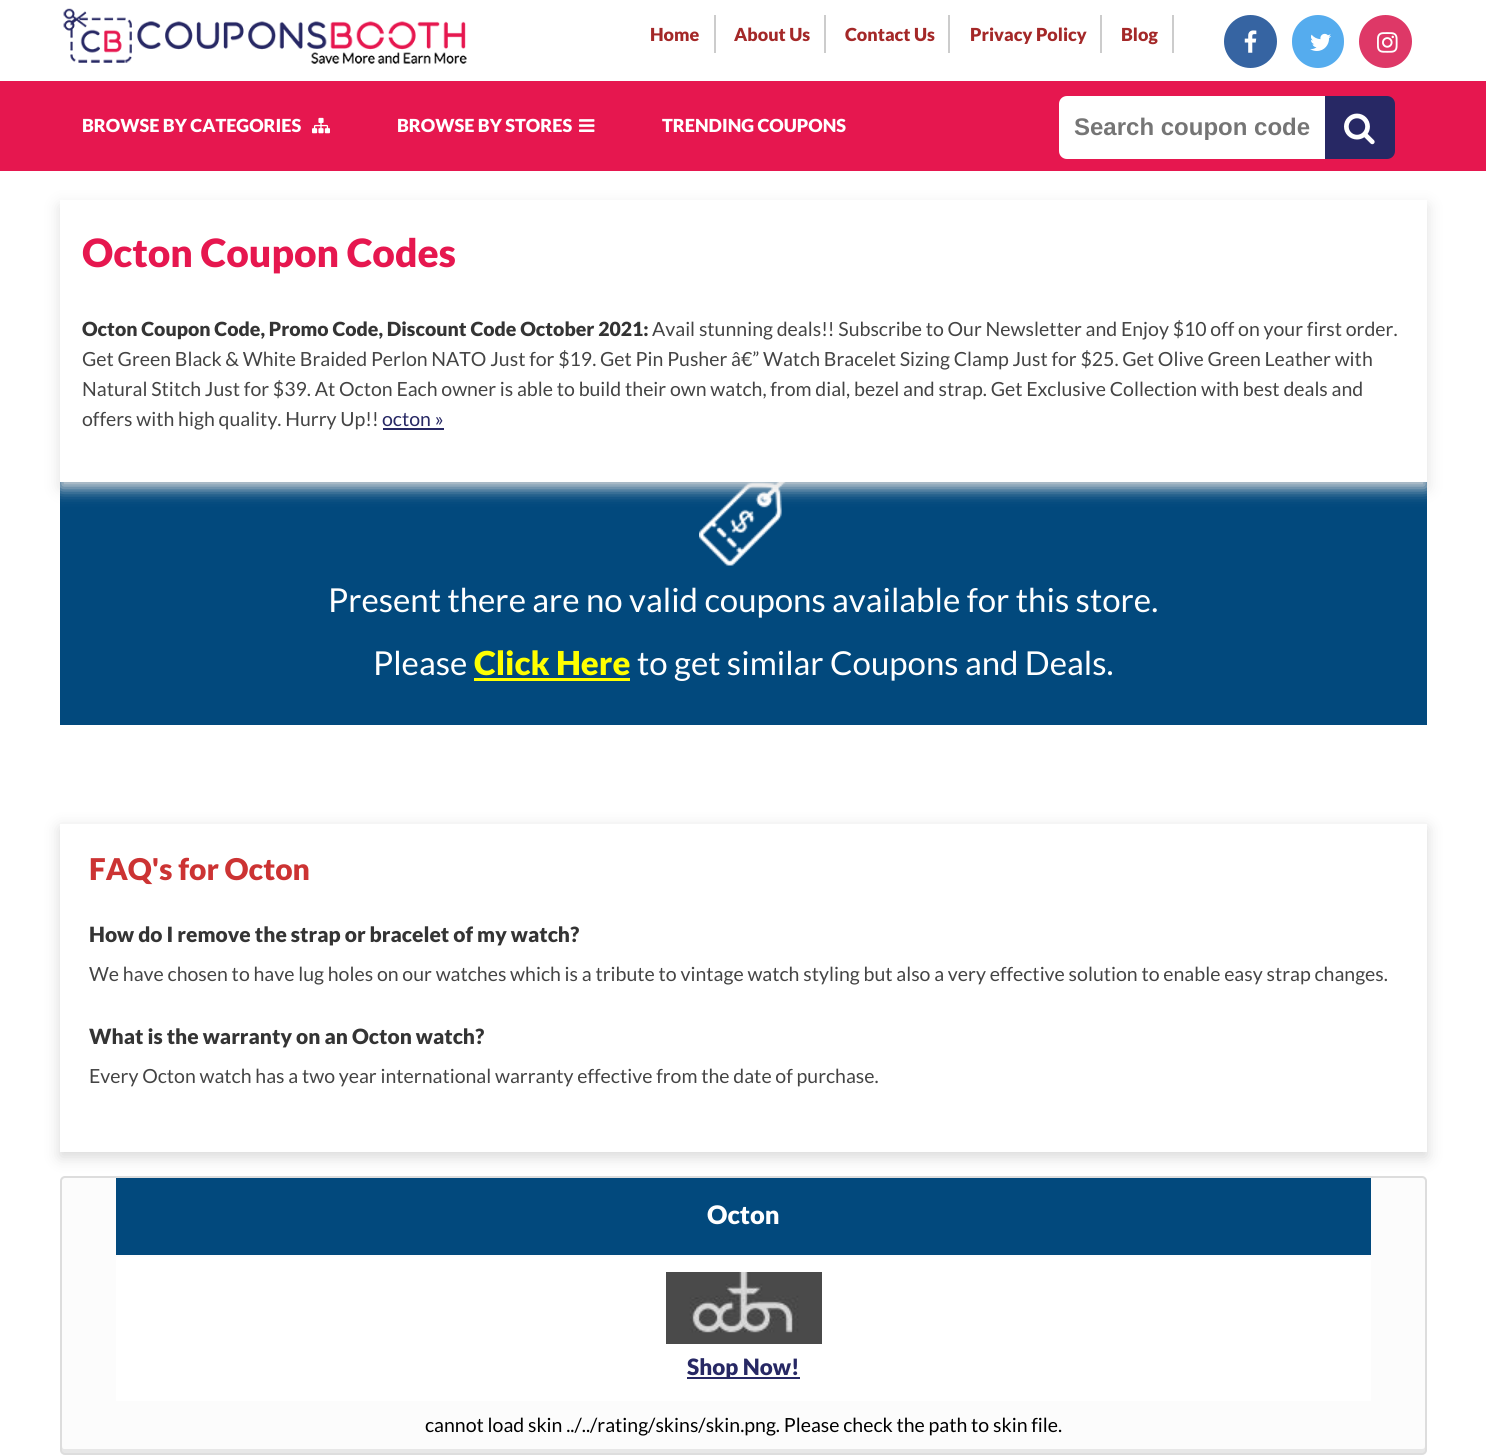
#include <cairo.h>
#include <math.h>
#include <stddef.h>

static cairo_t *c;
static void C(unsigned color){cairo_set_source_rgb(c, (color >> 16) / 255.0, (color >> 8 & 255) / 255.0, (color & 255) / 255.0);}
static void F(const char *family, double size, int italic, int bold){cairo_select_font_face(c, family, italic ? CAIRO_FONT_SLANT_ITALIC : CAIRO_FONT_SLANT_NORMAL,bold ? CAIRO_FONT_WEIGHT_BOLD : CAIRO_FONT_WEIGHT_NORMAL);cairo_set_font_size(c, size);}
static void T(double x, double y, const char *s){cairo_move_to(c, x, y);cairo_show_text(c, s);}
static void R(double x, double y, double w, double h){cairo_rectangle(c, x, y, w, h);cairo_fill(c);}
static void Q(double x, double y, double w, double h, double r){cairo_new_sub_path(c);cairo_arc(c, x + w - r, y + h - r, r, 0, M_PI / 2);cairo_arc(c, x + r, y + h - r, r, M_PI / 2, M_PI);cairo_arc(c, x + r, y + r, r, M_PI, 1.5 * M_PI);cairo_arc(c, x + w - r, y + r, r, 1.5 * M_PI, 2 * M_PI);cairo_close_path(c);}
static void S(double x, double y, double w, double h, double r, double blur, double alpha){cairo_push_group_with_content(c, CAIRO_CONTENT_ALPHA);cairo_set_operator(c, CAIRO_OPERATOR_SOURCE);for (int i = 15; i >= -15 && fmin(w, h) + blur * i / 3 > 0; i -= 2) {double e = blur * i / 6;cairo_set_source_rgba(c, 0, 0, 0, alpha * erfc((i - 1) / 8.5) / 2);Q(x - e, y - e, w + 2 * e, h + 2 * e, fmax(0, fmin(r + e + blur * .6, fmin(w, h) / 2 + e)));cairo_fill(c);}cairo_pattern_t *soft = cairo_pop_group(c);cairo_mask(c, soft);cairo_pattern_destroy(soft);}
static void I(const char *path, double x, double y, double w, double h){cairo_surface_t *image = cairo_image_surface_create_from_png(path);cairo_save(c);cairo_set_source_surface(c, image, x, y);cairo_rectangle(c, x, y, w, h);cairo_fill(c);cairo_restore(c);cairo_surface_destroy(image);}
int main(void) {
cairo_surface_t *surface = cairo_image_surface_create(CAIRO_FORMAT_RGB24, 1486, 1456);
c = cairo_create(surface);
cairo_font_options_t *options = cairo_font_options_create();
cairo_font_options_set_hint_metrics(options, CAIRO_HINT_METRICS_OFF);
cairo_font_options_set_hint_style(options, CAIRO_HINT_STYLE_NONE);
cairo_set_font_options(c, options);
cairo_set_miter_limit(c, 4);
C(0xffffff);
cairo_paint(c);
I("1.png",63,8,404,56);
C(0xcccccc);
R(714,15,2,38);
F("Lato Black",18,0,0);
C(0xa42828);
T(650,41,"Home");
C(0xcccccc);
R(824,15,2,38);
C(0xa42828);
T(734,41,"About Us");
C(0xcccccc);
R(948,15,2,38);
C(0xa42828);
T(845,41,"Contact Us");
C(0xcccccc);
R(1100,15,2,38);
C(0xa42828);
T(970,41,"Privacy Policy");
C(0xcccccc);
R(1172,15,2,38);
C(0xa42828);
T(1121,41,"Blog");
C(0x3664a2);
cairo_new_path(c);
cairo_arc(c,1250.5,41.5,26.5,0,2 * M_PI);
cairo_fill(c);
I("2.png",1244,30,13,23);
C(0x55acee);
Q(1292,15,52,53,26);
cairo_fill(c);
I("3.png",1310,33,21,18);
C(0xde3867);
cairo_arc(c,1385.5,41.5,26.5,0,2 * M_PI);
cairo_fill(c);
I("4.png",1377,32,21,21);
C(0xe6174f);
R(0,81,1486,90);
C(0xffffff);
T(82,132,"BROWSE BY CATEGORIES");
I("5.png",312,117,18,17);
T(397,132,"BROWSE BY STORES");
I("6.png",579,119,16,13);
T(662,132,"TRENDING COUPONS");
cairo_new_path(c);
cairo_move_to(c,1067,96);
cairo_line_to(c,1325,96);
cairo_line_to(c,1325,159);
cairo_line_to(c,1067,159);
cairo_curve_to(c,1062.5,159,1059,155.5,1059,151);
cairo_line_to(c,1059,104);
cairo_curve_to(c,1059,99.5,1062.5,96,1067,96);
cairo_close_path(c);
cairo_fill(c);
F("Liberation Sans",24,0,1);
C(0x757575);
T(1074,135,"Search coupon code");
C(0x272864);
cairo_new_path(c);
cairo_move_to(c,1325,96);
cairo_line_to(c,1387,96);
cairo_curve_to(c,1391.5,96,1395,99.5,1395,104);
cairo_line_to(c,1395,151);
cairo_curve_to(c,1395,155.5,1391.5,159,1387,159);
cairo_line_to(c,1325,159);
cairo_close_path(c);
cairo_fill(c);
I("7.png",1344,113,31,32);
C(0x02497d);
R(60,482,1367,243);
I("8.png",699,482,87,84);
C(0xdfdfdf);
S(60,206,1367,282,0,7.5,1);
C(0xffffff);
R(60,200,1367,282);
F("Lato Black",39,0,0);
C(0xe6174f);
T(82,267,"Octon Coupon Codes");
F("Lato Black",19.5,0,0);
C(0x343434);
T(82,336,"Octon Coupon Code, Promo Code, Discount Code October 2021:");
F("Lato",19.5,0,0);
C(0x444444);
T(652,336,"Avail stunning deals!! Subscribe to Our Newsletter and Enjoy $10 off on your first order.");
T(82,366,"Get Green Black & White Braided Perlon NATO Just for $19. Get Pin Pusher â€” Watch Bracelet Sizing Clamp Just for $25. Get Olive Green Leather with");
T(82,396,"Natural Stitch Just for $39. At Octon Each owner is able to build their own watch, from dial, bezel and strap. Get Exclusive Collection with best deals and");
T(82,426,"offers with high quality. Hurry Up!!");
C(0x272864);
T(382,426,"octon »");
R(383,428,61,2);
F("Lato",33,0,0);
C(0xffffff);
T(328,612,"Present there are no valid coupons available for this store.");
T(373,675,"Please");
F("Lato Black",33,0,0);
C(0xffff00);
T(474,675,"Click Here");
R(474,678,156,3);
F("Lato",33,0,0);
C(0xffffff);
T(637,675,"to get similar Coupons and Deals.");
C(0xd8d8d8);
S(60,828,1367,329,0,7.5,1);
C(0xffffff);
R(60,824,1367,328);
F("Lato Black",30,0,0);
C(0xcc3333);
T(89,880,"FAQ's for Octon");
F("Lato Black",21,0,0);
C(0x343434);
T(89,942,"How do I remove the strap or bracelet of my watch?");
F("Lato",19.5,0,0);
C(0x444444);
T(89,981,"We have chosen to have lug holes on our watches which is a tribute to vintage watch styling but also a very effective solution to enable easy strap changes.");
F("Lato Black",21,0,0);
C(0x343434);
T(89,1044,"What is the warranty on an Octon watch?");
F("Lato",19.5,0,0);
C(0x444444);
T(89,1083,"Every Octon watch has a two year international warranty effective from the date of purchase.");
C(0xfcfcfc);
Q(60,1176,1367,279,5);
cairo_fill(c);
C(0xe7e7e7);
cairo_new_path(c);
cairo_move_to(c,62,1446);
cairo_line_to(c,62,1451);
cairo_curve_to(c,62,1453,63,1454,65,1454);
cairo_line_to(c,1422,1454);
cairo_curve_to(c,1424,1454,1425,1453,1425,1451);
cairo_line_to(c,1425,1446);
cairo_curve_to(c,1425,1448,1424,1449,1422,1449);
cairo_line_to(c,64,1449);
cairo_curve_to(c,63,1449,62,1448,62,1446);
cairo_close_path(c);
cairo_fill(c);
Q(61,1177,1365,277,4);
C(0xdddddd);
cairo_stroke(c);
C(0x02497d);
R(116,1178,1255,77);
F("Lato Black",25.5,0,0);
C(0xffffff);
T(707,1224,"Octon");
R(116,1257,1255,144);
I("9.png",666,1272,156,72);
C(0x272864);
R(687,1377,113,2);
F("Lato Black",22.5,0,0);
T(687,1375,"Shop Now!");
F("Lato",19.5,0,0);
C(0x000000);
T(425,1432,"cannot load skin ../../rating/skins/skin.png. Please check the path to skin file.");
cairo_surface_write_to_png(surface, "o.png");
cairo_font_options_destroy(options);
cairo_destroy(c);
cairo_surface_destroy(surface);
return 0;
}
